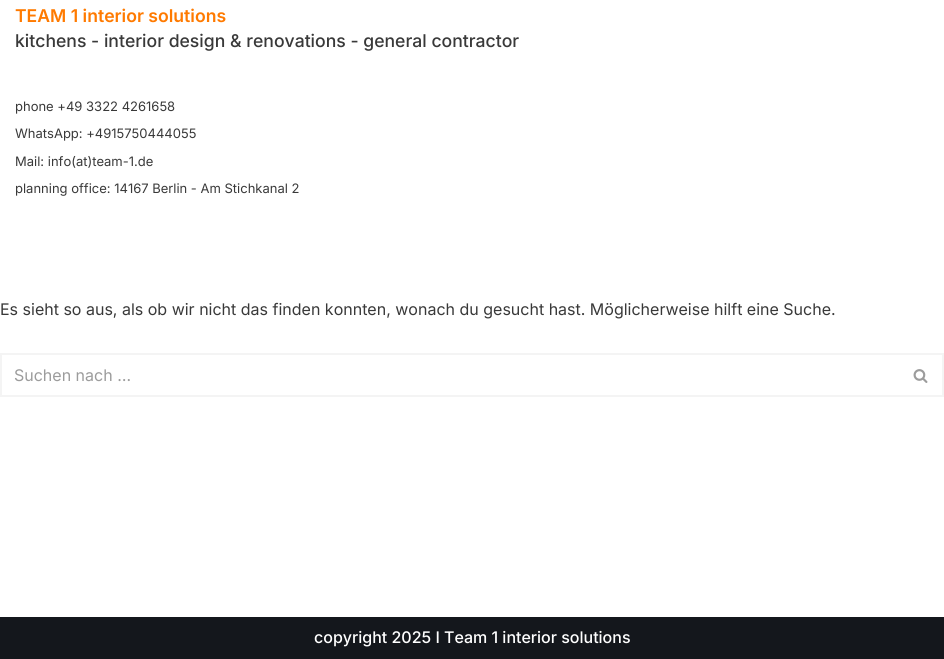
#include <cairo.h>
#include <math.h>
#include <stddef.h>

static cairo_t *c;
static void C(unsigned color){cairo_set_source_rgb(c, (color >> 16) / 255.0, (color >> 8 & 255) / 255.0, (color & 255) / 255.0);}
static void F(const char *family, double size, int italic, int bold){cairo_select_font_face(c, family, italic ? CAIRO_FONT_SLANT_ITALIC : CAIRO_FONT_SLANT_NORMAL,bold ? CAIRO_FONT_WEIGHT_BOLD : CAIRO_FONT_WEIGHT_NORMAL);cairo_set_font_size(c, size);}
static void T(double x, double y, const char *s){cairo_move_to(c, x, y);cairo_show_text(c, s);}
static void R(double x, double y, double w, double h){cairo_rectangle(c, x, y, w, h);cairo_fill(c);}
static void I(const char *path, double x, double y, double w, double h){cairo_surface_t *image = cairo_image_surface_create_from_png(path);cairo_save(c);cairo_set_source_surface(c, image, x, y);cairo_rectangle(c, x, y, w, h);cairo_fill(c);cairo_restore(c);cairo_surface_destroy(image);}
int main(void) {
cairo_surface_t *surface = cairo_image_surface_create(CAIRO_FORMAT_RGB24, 944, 659);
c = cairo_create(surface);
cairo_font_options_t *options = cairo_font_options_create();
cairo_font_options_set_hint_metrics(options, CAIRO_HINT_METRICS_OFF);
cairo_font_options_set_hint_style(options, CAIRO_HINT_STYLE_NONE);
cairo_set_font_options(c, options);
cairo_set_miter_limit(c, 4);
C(0xffffff);
cairo_paint(c);
F("Inter SemiBold",17.6,0,0);
C(0xff7a00);
T(15,22,"TEAM 1 interior solutions");
F("Inter Medium",17.6,0,0);
C(0x393939);
T(15,47,"kitchens - interior design & renovations - general contractor");
F("Inter",13,0,0);
T(15,111,"phone +49 3322 4261658");
T(15,138,"WhatsApp: +4915750444055");
T(15,166,"Mail: info(at)team-1.de");
T(15,193,"planning office: 14167 Berlin - Am Stichkanal 2");
F("Inter",16,0,0);
T(0,315,"Es sieht so aus, als ob wir nicht das finden konnten, wonach du gesucht hast. Möglicherweise hilft eine Suche.");
C(0xf4f4f4);
R(0,353,944,2);
R(0,395,899,2);
R(0,353,2,44);
C(0x9c9c9c);
T(14,381,"Suchen nach …");
C(0xf4f4f4);
R(942,353,2,44);
R(899,395,45,2);
I("1.png",913,369,15,14);
C(0x14171c);
R(0,617,944,42);
F("Inter Medium",16,0,0);
C(0xffffff);
T(314,643,"copyright 2025 I Team 1 interior solutions");
cairo_surface_write_to_png(surface, "o.png");
cairo_font_options_destroy(options);
cairo_destroy(c);
cairo_surface_destroy(surface);
return 0;
}
